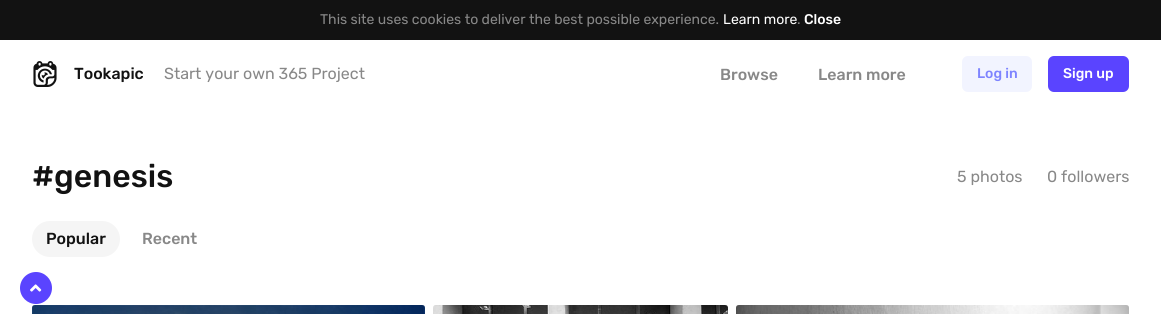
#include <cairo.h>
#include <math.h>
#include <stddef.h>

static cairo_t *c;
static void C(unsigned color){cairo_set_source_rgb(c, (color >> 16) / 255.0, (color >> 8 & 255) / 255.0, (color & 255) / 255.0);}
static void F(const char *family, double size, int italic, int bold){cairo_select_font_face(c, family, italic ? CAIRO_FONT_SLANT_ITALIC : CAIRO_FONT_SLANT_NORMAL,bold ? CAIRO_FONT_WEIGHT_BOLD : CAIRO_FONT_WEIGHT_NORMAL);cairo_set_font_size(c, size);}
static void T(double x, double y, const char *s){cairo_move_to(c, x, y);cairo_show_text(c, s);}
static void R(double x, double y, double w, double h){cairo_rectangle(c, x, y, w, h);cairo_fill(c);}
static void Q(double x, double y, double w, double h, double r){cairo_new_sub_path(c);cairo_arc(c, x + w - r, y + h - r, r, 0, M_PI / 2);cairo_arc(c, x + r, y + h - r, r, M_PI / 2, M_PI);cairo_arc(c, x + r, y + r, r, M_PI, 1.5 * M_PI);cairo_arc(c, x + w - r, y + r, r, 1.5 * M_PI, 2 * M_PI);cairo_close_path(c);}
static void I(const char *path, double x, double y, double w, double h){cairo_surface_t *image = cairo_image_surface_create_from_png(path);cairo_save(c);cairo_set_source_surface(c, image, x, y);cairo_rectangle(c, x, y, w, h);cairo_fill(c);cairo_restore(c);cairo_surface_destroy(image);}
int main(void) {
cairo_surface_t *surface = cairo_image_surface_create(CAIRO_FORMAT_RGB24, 1161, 314);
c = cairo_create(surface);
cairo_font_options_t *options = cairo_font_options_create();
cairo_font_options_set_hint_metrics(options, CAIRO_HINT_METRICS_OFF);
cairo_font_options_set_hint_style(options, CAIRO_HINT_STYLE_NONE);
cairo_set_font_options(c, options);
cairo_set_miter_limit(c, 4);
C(0xffffff);
cairo_paint(c);
C(0x121212);
R(0,0,1161,40);
F("Rubik",14,0,0);
C(0x888888);
T(320,24,"This site uses cookies to deliver the best possible experience.");
C(0xffffff);
T(723,24,"Learn more");
C(0x888888);
T(797,24,".");
F("Rubik Medium",14,0,0);
C(0xffffff);
T(804,24,"Close");
I("1.png",33,61,24,26);
F("Rubik Medium",16,0,0);
C(0x121212);
T(74,79,"Tookapic");
F("Rubik",16,0,0);
C(0x888888);
T(164,79,"Start your own 365 Project");
F("Rubik Medium",16,0,0);
T(720,80,"Browse");
T(818,80,"Learn more");
C(0xf2f4ff);
Q(962,56,70,36,6);
cairo_fill(c);
F("Rubik Medium",14,0,0);
C(0x7e84ff);
T(977,78,"Log in");
C(0x5a44ff);
Q(1048,56,81,36,6);
cairo_fill(c);
C(0xffffff);
T(1063,78,"Sign up");
F("Rubik Medium",32,0,0);
C(0x121212);
T(32,187,"#genesis");
F("Rubik",16,0,0);
C(0x888888);
T(957,182,"5 photos");
T(1047,182,"0 followers");
C(0xf5f5f5);
Q(32,221,88,36,18);
cairo_fill(c);
F("Rubik Medium",16,0,0);
C(0x121212);
T(46,244,"Popular");
C(0x888888);
T(142,244,"Recent");
C(0x5a44ff);
cairo_new_path(c);
cairo_arc(c,36,288,16,0,2 * M_PI);
cairo_fill(c);
I("2.png",30,284,12,8);
I("3.png",32,305,393,9);
I("4.png",433,305,295,9);
I("5.png",736,305,393,9);
cairo_surface_write_to_png(surface, "o.png");
cairo_font_options_destroy(options);
cairo_destroy(c);
cairo_surface_destroy(surface);
return 0;
}
